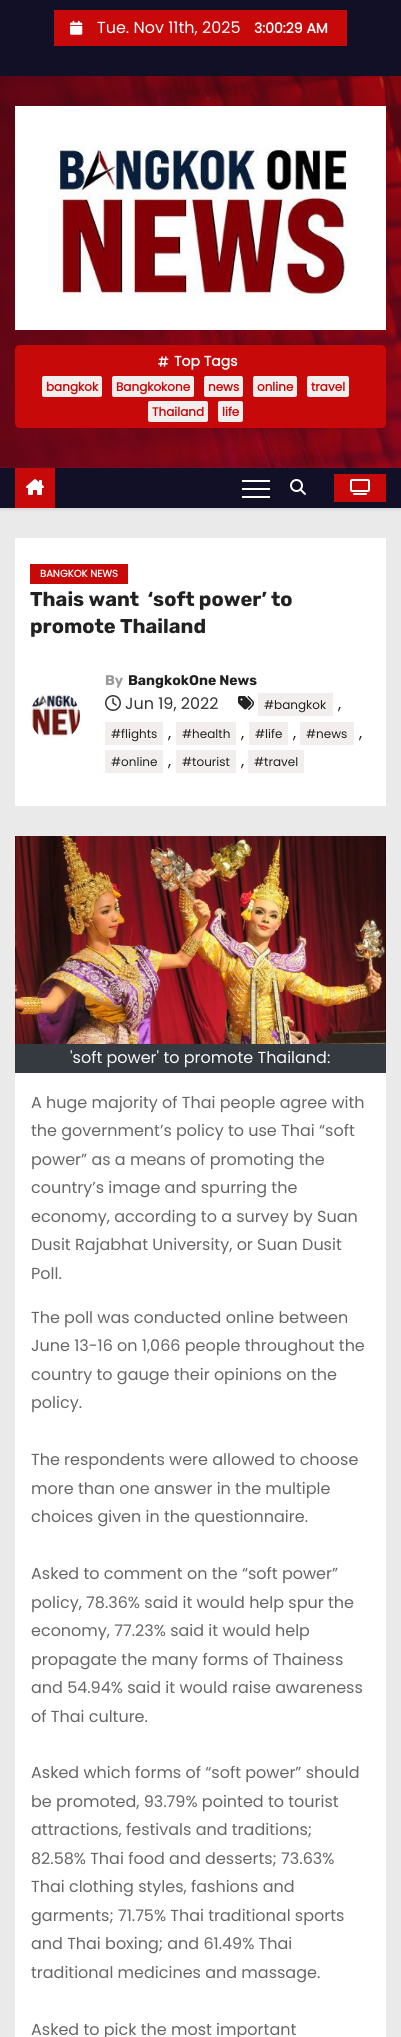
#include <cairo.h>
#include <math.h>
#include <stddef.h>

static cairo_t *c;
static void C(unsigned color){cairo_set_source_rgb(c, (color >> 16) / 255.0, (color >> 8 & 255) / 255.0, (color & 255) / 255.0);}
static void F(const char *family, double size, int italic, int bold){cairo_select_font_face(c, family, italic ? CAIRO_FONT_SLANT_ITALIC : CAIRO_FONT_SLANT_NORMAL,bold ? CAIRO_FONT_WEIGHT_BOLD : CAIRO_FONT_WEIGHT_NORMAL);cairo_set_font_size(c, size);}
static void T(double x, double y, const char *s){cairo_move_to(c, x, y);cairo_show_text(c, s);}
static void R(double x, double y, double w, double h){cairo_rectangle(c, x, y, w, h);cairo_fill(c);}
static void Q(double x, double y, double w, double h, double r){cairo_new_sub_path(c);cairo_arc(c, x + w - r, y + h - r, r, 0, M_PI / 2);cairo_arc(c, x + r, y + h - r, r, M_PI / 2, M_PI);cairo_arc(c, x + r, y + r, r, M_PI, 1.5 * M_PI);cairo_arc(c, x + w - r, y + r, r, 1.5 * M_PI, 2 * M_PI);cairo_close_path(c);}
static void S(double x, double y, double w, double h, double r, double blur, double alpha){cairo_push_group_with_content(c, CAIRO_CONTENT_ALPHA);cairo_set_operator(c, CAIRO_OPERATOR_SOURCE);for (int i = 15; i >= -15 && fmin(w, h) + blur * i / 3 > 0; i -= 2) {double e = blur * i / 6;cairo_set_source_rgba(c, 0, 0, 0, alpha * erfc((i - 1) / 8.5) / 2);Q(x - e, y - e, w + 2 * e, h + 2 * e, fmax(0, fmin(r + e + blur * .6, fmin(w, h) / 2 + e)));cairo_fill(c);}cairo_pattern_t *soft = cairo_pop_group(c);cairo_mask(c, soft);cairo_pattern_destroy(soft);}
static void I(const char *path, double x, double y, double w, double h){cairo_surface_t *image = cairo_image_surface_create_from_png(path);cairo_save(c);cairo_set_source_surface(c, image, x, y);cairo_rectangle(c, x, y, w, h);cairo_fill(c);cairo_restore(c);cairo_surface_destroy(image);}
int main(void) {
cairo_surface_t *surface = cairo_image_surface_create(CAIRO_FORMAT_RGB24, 401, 2037);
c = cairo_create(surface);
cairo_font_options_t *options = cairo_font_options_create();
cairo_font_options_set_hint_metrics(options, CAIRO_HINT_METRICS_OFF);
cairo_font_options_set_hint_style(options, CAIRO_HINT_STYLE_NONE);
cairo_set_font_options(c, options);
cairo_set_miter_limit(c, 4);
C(0xeaeaea);
cairo_paint(c);
C(0x121026);
R(0,0,401,76);
C(0xc70909);
R(54,10,293,36);
I("1.png",70,20,13,15);
F("Poppins",16,0,0);
C(0xffffff);
T(97,33,"Tue. Nov 11th, 2025");
F("Poppins",14,0,1);
T(254,33,"3:00:29 AM");
I("2.png",0,76,401,392);
I("3.png",15,106,371,224);
C(0xc70909);
Q(15,345,371,83,5);
cairo_fill(c);
I("4.png",158,356,11,11);
C(0xffffff);
T(174,366,"Top Tags");
C(0xf3eeee);
Q(42,376,60,21,2);
cairo_fill(c);
F("Poppins",12,0,1);
C(0xc70909);
T(46,391,"bangkok");
C(0xf3eeee);
Q(112,376,82,21,2);
cairo_fill(c);
C(0xc70909);
T(116,391,"Bangkokone");
C(0xf3eeee);
Q(204,376,39,21,2);
cairo_fill(c);
C(0xc70909);
T(208,391,"news");
C(0xf3eeee);
Q(253,376,44,21,2);
cairo_fill(c);
C(0xc70909);
T(257,391,"online");
C(0xf3eeee);
Q(307,376,42,21,2);
cairo_fill(c);
C(0xc70909);
T(311,391,"travel");
C(0xf3eeee);
Q(148,401,60,21,2);
cairo_fill(c);
C(0xc70909);
T(152,416,"Thailand");
C(0xf3eeee);
Q(218,401,25,21,2);
cairo_fill(c);
C(0xc70909);
T(222,416,"life");
C(0x000000);
S(0,470,401,40,0,1,.08);
C(0x121026);
R(0,468,401,40);
C(0xc70909);
R(15,468,40,40);
I("5.png",26,479,18,16);
C(0xffffff);
R(242,480,28,2);
R(242,488,28,2);
R(242,496,28,2);
I("6.png",290,479,16,16);
C(0xc70909);
R(334,474,52,28);
I("7.png",350,479,20,16);
C(0xffffff);
R(15,538,371,268);
C(0xc70909);
R(30,564,98,20);
F("Poppins",10,0,1);
C(0xffffff);
T(40,577,"BANGKOK NEWS");
F("Rubik",20,0,1);
C(0x212121);
T(30,606,"Thais want  ‘soft power’ to");
T(30,633,"promote Thailand");
I("8.png",30,691,50,47);
F("Rubik",14,0,1);
C(0x999999);
T(105,685,"By");
C(0x212121);
T(128,685,"BangkokOne News");
I("9.png",105,695,16,16);
F("Poppins",16,0,0);
C(0x333333);
T(125,709,"Jun 19, 2022");
I("10.png",238,696,16,14);
C(0xf3eeee);
R(258,693,75,23);
F("Poppins",12,0,0);
C(0x212121);
T(264,709,"#bangkok");
F("Poppins",16,0,0);
T(338,709,",");
C(0xf3eeee);
R(105,722,58,23);
F("Poppins",12,0,0);
C(0x212121);
T(111,738,"#flights");
F("Poppins",16,0,0);
T(168,738,",");
C(0xf3eeee);
R(176,722,60,23);
F("Poppins",12,0,0);
C(0x212121);
T(182,738,"#health");
F("Poppins",16,0,0);
T(241,738,",");
C(0xf3eeee);
R(249,722,39,23);
F("Poppins",12,0,0);
C(0x212121);
T(255,738,"#life");
F("Poppins",16,0,0);
T(293,738,",");
C(0xf3eeee);
R(300,722,54,23);
F("Poppins",12,0,0);
C(0x212121);
T(306,738,"#news");
F("Poppins",16,0,0);
T(359,738,",");
C(0xf3eeee);
R(105,750,58,23);
F("Poppins",12,0,0);
C(0x212121);
T(111,766,"#online");
F("Poppins",16,0,0);
T(168,766,",");
C(0xf3eeee);
R(176,750,60,23);
F("Poppins",12,0,0);
C(0x212121);
T(182,766,"#tourist");
F("Poppins",16,0,0);
T(241,766,",");
C(0xf3eeee);
R(248,750,56,23);
F("Poppins",12,0,0);
C(0x212121);
T(254,766,"#travel");
I("11.png",15,836,371,208);
C(0x343a40);
R(15,1044,371,29);
F("Poppins",16,0,0);
C(0xf8f9fa);
T(70,1063,"'soft power' to promote Thailand:");
C(0xffffff);
R(15,1073,371,964);
C(0x666666);
T(31,1108,"A huge majority of Thai people agree with");
T(31,1136,"the government’s policy to use Thai “soft");
T(31,1165,"power” as a means of promoting the");
T(31,1193,"country’s image and spurring the");
T(31,1222,"economy, according to a survey by Suan");
T(31,1250,"Dusit Rajabhat University, or Suan Dusit");
T(31,1279,"Poll.");
T(31,1323,"The poll was conducted online between");
T(31,1351,"June 13-16 on 1,066 people throughout the");
T(31,1380,"country to gauge their opinions on the");
T(31,1408,"policy.");
T(31,1465,"The respondents were allowed to choose");
T(31,1494,"more than one answer in the multiple");
T(31,1522,"choices given in the questionnaire.");
T(31,1579,"Asked to comment on the “soft power”");
T(31,1608,"policy, 78.36% said it would help spur the");
T(31,1636,"economy, 77.23% said it would help");
T(31,1665,"propagate the many forms of Thainess");
T(31,1693,"and 54.94% said it would raise awareness");
T(31,1722,"of Thai culture.");
T(31,1778,"Asked which forms of “soft power” should");
T(31,1807,"be promoted, 93.79% pointed to tourist");
T(31,1835,"attractions, festivals and traditions;");
T(31,1864,"82.58% Thai food and desserts; 73.63%");
T(31,1892,"Thai clothing styles, fashions and");
T(31,1921,"garments; 71.75% Thai traditional sports");
T(31,1949,"and Thai boxing; and 61.49% Thai");
T(31,1978,"traditional medicines and massage.");
T(31,2035,"Asked to pick the most important");
cairo_surface_write_to_png(surface, "o.png");
cairo_font_options_destroy(options);
cairo_destroy(c);
cairo_surface_destroy(surface);
return 0;
}
